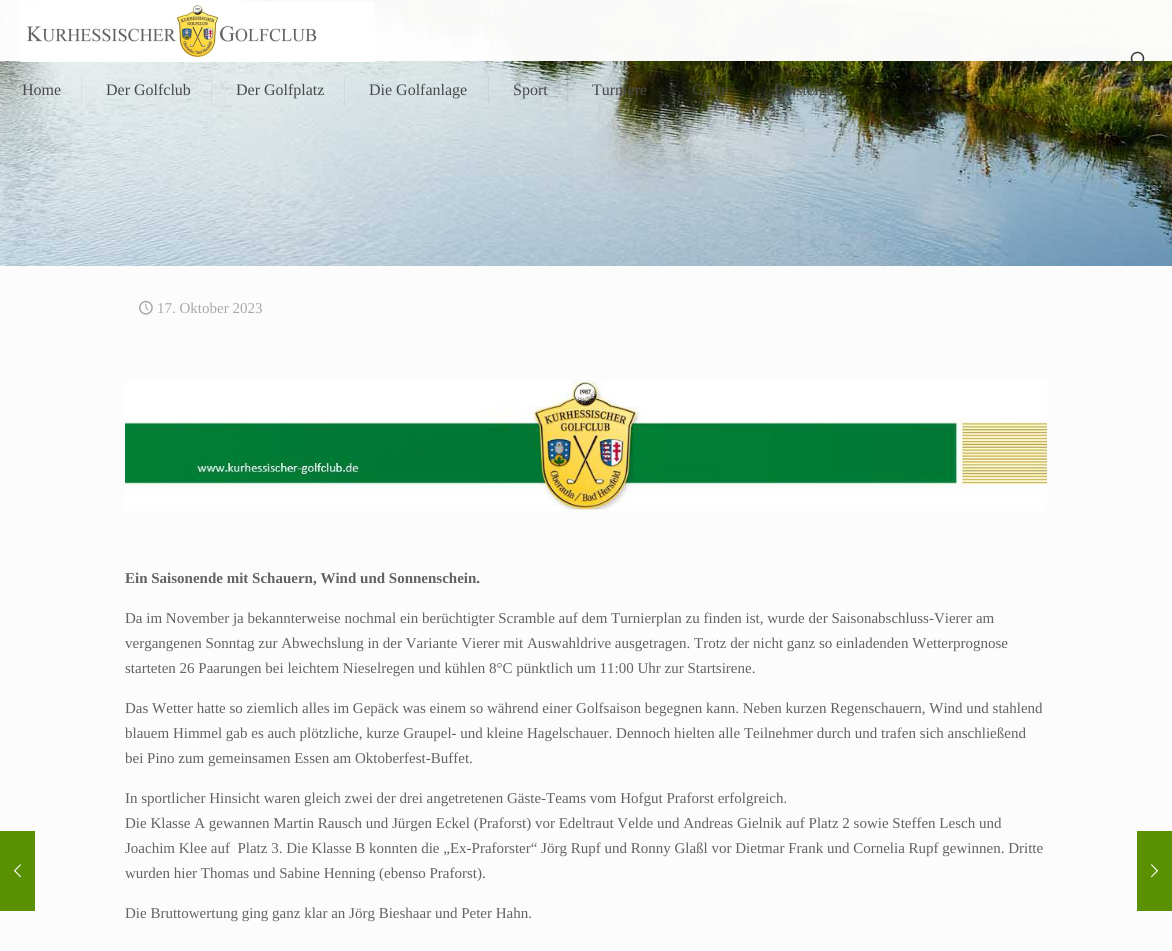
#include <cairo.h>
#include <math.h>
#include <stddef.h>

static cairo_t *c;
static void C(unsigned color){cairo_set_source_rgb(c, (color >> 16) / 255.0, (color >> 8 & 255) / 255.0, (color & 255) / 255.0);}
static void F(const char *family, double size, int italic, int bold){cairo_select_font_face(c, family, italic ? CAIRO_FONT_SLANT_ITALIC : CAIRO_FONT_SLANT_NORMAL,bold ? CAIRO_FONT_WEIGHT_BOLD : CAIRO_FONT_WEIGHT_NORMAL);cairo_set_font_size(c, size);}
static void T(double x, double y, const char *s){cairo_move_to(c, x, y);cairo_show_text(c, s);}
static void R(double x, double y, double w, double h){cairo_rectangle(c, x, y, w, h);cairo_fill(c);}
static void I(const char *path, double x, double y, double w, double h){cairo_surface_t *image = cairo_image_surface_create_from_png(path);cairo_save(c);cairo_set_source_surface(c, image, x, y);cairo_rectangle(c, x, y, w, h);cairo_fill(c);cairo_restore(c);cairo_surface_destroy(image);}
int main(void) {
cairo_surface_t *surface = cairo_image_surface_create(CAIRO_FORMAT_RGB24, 1172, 951);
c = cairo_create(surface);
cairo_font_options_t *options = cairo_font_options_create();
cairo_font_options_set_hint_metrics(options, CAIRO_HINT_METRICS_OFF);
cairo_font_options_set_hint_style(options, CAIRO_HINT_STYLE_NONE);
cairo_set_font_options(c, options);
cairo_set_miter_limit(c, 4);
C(0xffffff);
cairo_paint(c);
C(0xfcfcfc);
R(0,266,1172,685);
C(0x5a9102);
R(0,831,35,80);
I("1.png",14,864,7,14);
I("2.png",0,0,1172,266);
cairo_set_source_rgba(c,1,1,1,0.97);
R(0,0,1172,61);
cairo_arc(c,1137.5,58.5,6,0,2 * M_PI);
cairo_set_source_rgba(c,0.2,0.2,0.2,0.97);
cairo_set_line_width(c,1.5);
cairo_stroke(c);
cairo_new_path(c);
cairo_move_to(c,1141.5,62.5);
cairo_line_to(c,1146.5,67.5);
cairo_stroke(c);
I("3.png",20,2,355,60);
cairo_set_source_rgba(c,0,0,0,0.05);
R(81,75,1,30);
F("Liberation Serif",16,0,0);
C(0x484849);
T(22,95,"Home");
cairo_set_source_rgba(c,0,0,0,0.05);
R(211,75,1,30);
C(0x484849);
T(106,95,"Der Golfclub");
cairo_set_source_rgba(c,0,0,0,0.05);
R(344,75,1,30);
C(0x484849);
T(236,95,"Der Golfplatz");
cairo_set_source_rgba(c,0,0,0,0.05);
R(488,75,1,30);
C(0x484849);
T(369,95,"Die Golfanlage");
cairo_set_source_rgba(c,0,0,0,0.05);
R(567,75,1,30);
C(0x484849);
T(513,95,"Sport");
T(592,95,"Turniere");
cairo_set_source_rgba(c,0,0,0,0.05);
R(749,97,1,8);
C(0x444442);
T(692,95,"Gäste");
C(0x484849);
T(774,95,"Einsteiger");
I("4.png",139,300,14,15);
F("Liberation Serif",15,0,0);
C(0xa8a8a8);
T(157,313,"17. Oktober 2023");
I("5.png",125,381,922,130);
F("Liberation Serif",15,0,1);
C(0x626262);
T(125,583,"Ein Saisonende mit Schauern, Wind und Sonnenschein.");
F("Liberation Serif",15,0,0);
T(125,623,"Da im November ja bekannterweise nochmal ein berüchtigter Scramble auf dem Turnierplan zu finden ist, wurde der Saisonabschluss-Vierer am");
T(125,648,"vergangenen Sonntag zur Abwechslung in der Variante Vierer mit Auswahldrive ausgetragen. Trotz der nicht ganz so einladenden Wetterprognose");
T(125,673,"starteten 26 Paarungen bei leichtem Nieselregen und kühlen 8°C pünktlich um 11:00 Uhr zur Startsirene.");
T(125,713,"Das Wetter hatte so ziemlich alles im Gepäck was einem so während einer Golfsaison begegnen kann. Neben kurzen Regenschauern, Wind und stahlend");
T(125,738,"blauem Himmel gab es auch plötzliche, kurze Graupel- und kleine Hagelschauer. Dennoch hielten alle Teilnehmer durch und trafen sich anschließend");
T(125,763,"bei Pino zum gemeinsamen Essen am Oktoberfest-Buffet.");
T(125,803,"In sportlicher Hinsicht waren gleich zwei der drei angetretenen Gäste-Teams vom Hofgut Praforst erfolgreich.");
T(125,828,"Die Klasse A gewannen Martin Rausch und Jürgen Eckel (Praforst) vor Edeltraut Velde und Andreas Gielnik auf Platz 2 sowie Steffen Lesch und");
T(125,853,"Joachim Klee auf  Platz 3. Die Klasse B konnten die „Ex-Praforster“ Jörg Rupf und Ronny Glaßl vor Dietmar Frank und Cornelia Rupf gewinnen. Dritte");
T(125,878,"wurden hier Thomas und Sabine Henning (ebenso Praforst).");
T(125,918,"Die Bruttowertung ging ganz klar an Jörg Bieshaar und Peter Hahn.");
C(0x5a9102);
R(1137,831,35,80);
I("6.png",1151,864,7,14);
cairo_surface_write_to_png(surface, "o.png");
cairo_font_options_destroy(options);
cairo_destroy(c);
cairo_surface_destroy(surface);
return 0;
}
